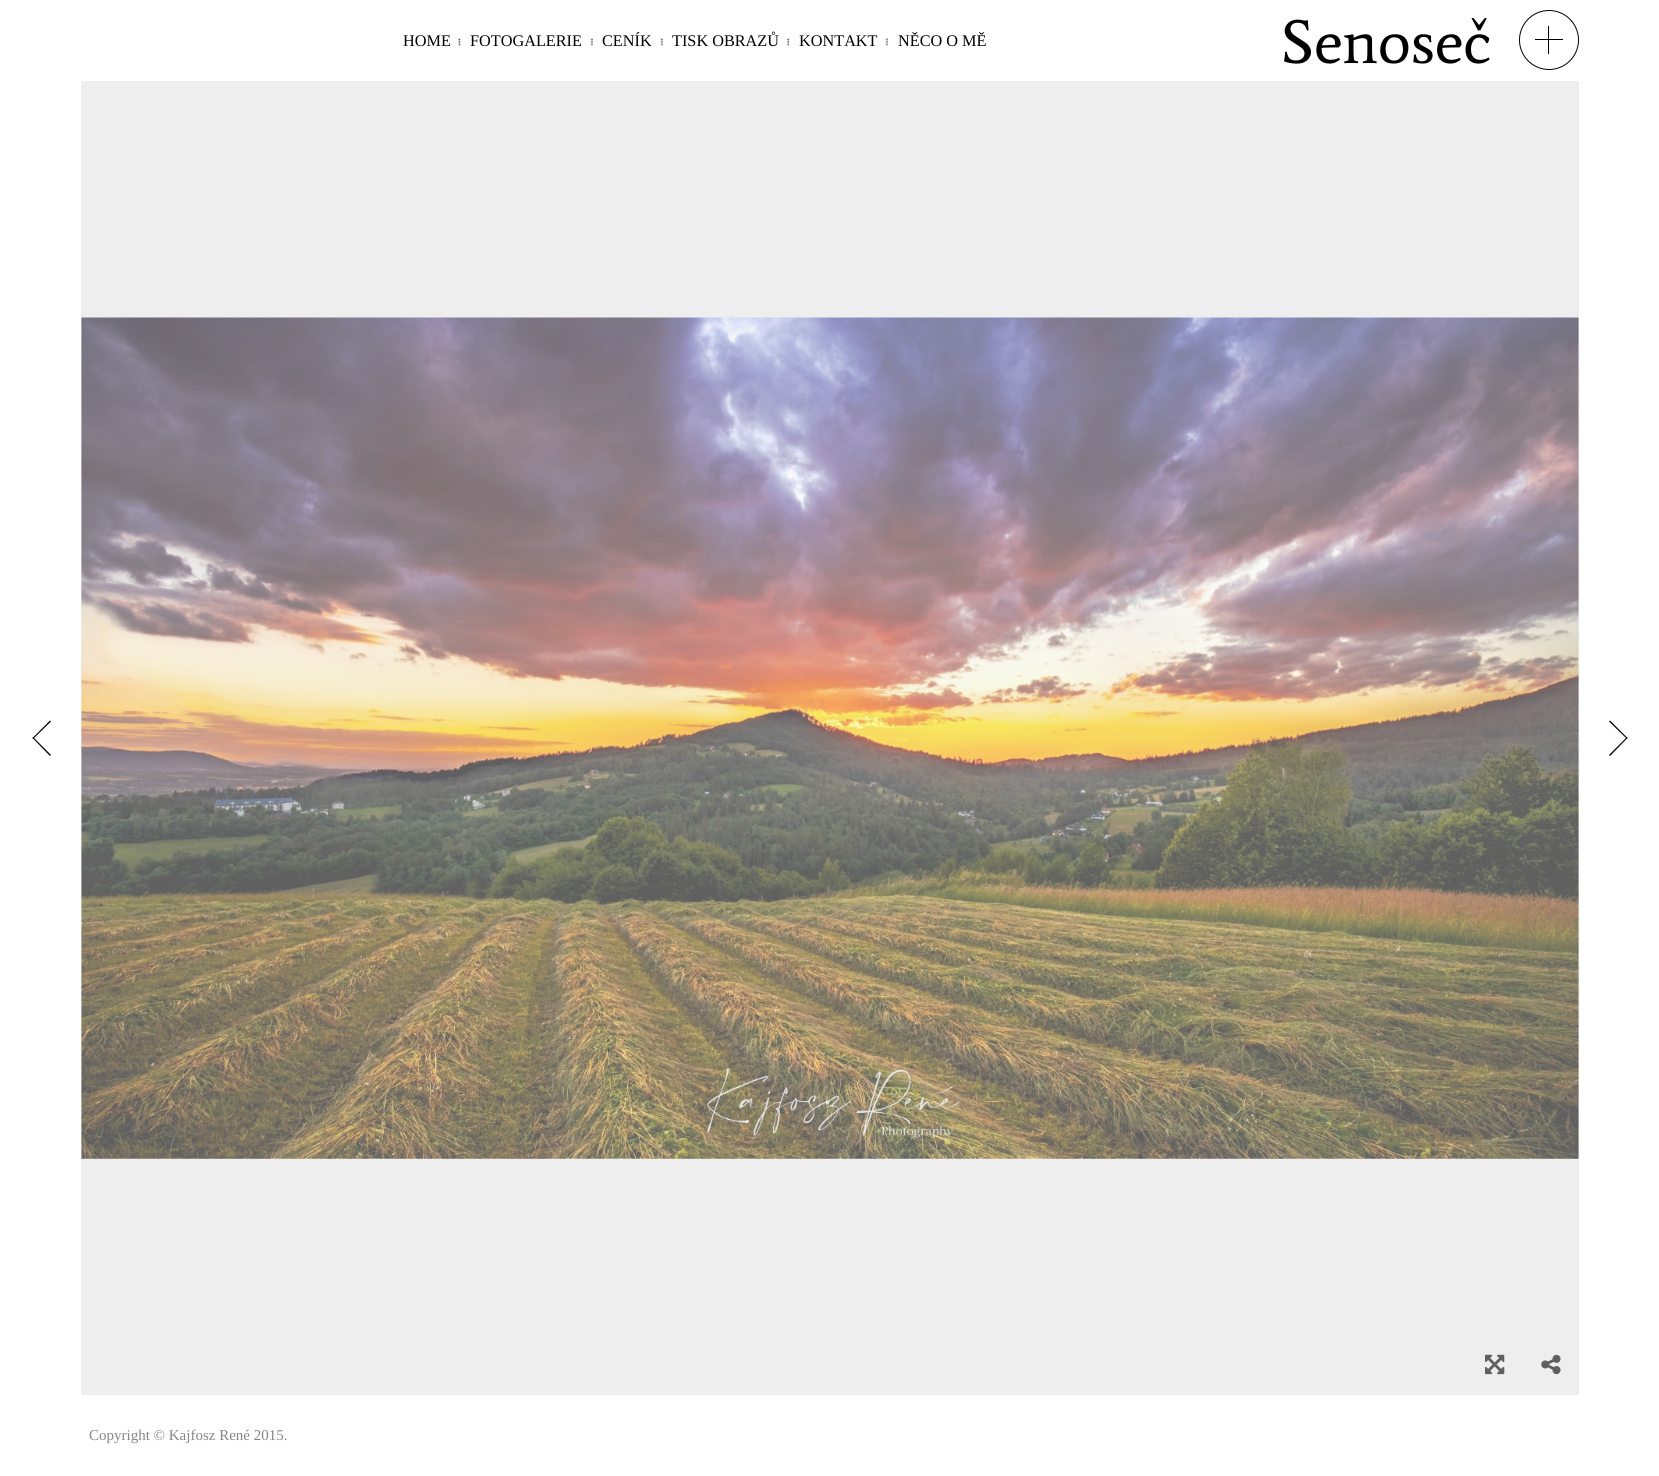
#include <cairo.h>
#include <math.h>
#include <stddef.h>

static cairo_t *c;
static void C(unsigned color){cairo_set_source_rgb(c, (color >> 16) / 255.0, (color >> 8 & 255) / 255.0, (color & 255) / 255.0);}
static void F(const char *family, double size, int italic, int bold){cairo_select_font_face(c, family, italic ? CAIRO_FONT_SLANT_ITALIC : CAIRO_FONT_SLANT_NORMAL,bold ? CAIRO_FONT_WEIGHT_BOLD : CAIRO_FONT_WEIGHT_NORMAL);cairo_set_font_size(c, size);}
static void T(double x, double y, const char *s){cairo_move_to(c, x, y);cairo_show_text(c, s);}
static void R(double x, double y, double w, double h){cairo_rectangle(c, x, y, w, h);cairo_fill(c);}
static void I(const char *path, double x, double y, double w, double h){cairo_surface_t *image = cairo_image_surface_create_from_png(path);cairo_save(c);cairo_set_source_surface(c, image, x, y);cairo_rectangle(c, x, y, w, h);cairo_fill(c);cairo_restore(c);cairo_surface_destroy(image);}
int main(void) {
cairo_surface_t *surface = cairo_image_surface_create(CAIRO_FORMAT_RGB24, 1659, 1476);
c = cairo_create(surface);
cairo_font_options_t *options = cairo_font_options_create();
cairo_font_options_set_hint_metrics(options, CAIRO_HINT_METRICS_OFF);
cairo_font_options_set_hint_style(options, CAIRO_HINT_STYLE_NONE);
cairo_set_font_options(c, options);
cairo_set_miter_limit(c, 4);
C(0xffffff);
cairo_paint(c);
F("Tinos",16.25,0,0);
C(0x000000);
T(403,46,"HOME");
I("1.png",458,38,3,8);
T(470,46,"FOTOGALERIE");
I("2.png",590,38,3,8);
T(602,46,"CENÍK");
I("2.png",660,38,3,8);
T(672,46,"TISK OBRAZŮ");
I("3.png",786,38,4,8);
T(799,46,"KONTAKT");
I("2.png",885,38,3,8);
T(898,46,"NĚCO O MĚ");
F("Average",62.5,0,0);
T(1281,63,"Senoseč");
cairo_new_path(c);
cairo_arc(c,1549,40,29.5,0,2 * M_PI);
cairo_set_line_width(c,1);
cairo_stroke(c);
R(1535,39,28,1);
R(1548,26,1,28);
cairo_new_path(c);
cairo_move_to(c,33,737);
cairo_line_to(c,51,755);
cairo_line_to(c,50,756);
cairo_line_to(c,32.5,738);
cairo_close_path(c);
cairo_fill(c);
cairo_new_path(c);
cairo_move_to(c,50,720.5);
cairo_line_to(c,51,721.5);
cairo_line_to(c,33,739);
cairo_line_to(c,32.5,738);
cairo_close_path(c);
cairo_fill(c);
C(0xeeeeee);
R(81,81,1498,1314);
I("4.png",81,317,1498,842);
C(0x000000);
cairo_new_path(c);
cairo_move_to(c,1610,720.5);
cairo_line_to(c,1627.5,738);
cairo_line_to(c,1627,739);
cairo_line_to(c,1609,721.5);
cairo_close_path(c);
cairo_fill(c);
cairo_new_path(c);
cairo_move_to(c,1627,737);
cairo_line_to(c,1627.5,738);
cairo_line_to(c,1610,756);
cairo_line_to(c,1609,755);
cairo_close_path(c);
cairo_fill(c);
I("5.png",1485,1354,20,21);
I("6.png",1541,1354,20,21);
F("Tinos",15,0,0);
C(0x868686);
T(89,1440,"Copyright © Kajfosz René 2015.");
cairo_surface_write_to_png(surface, "o.png");
cairo_font_options_destroy(options);
cairo_destroy(c);
cairo_surface_destroy(surface);
return 0;
}
